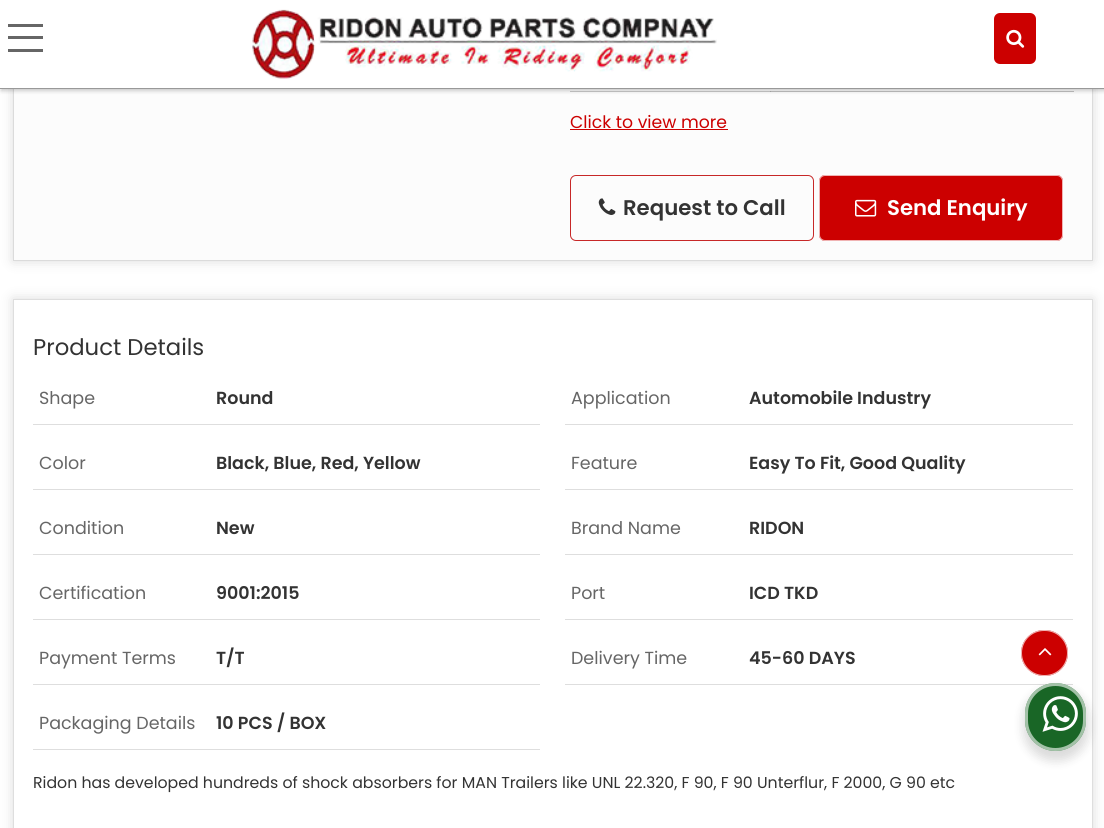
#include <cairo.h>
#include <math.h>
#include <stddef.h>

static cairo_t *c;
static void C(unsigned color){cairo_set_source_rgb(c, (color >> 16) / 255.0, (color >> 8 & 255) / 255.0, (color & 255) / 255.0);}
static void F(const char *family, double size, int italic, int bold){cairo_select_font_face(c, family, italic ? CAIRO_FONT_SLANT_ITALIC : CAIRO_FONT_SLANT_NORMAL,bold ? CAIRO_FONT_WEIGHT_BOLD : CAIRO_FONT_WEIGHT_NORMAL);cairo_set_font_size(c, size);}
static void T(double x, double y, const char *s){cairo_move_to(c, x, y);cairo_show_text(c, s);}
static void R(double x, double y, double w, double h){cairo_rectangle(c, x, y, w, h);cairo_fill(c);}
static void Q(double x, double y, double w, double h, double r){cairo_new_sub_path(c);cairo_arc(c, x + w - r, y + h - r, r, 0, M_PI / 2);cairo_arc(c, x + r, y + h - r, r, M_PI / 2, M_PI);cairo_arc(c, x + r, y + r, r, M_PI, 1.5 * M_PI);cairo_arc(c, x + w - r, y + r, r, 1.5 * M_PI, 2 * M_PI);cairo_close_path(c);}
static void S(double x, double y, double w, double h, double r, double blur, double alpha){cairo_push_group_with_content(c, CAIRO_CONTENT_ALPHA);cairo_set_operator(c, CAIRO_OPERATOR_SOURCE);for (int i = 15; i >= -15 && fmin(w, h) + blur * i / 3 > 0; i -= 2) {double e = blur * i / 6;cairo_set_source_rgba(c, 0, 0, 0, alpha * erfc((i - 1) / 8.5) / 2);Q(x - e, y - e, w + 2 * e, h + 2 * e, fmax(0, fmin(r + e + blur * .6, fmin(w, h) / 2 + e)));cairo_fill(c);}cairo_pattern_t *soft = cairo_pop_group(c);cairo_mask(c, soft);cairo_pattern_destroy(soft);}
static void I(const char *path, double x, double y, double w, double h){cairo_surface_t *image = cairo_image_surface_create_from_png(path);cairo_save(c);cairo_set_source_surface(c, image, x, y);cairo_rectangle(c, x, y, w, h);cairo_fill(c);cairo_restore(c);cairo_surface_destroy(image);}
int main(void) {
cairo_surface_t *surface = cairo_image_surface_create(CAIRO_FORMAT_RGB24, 1104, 828);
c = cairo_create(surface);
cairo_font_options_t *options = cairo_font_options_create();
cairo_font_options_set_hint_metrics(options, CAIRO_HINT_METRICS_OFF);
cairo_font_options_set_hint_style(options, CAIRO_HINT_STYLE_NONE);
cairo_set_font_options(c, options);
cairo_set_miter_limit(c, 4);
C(0xffffff);
cairo_paint(c);
C(0xcccccc);
S(13,-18,1080,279,0,6,.67);
C(0xfcfcfc);
R(14,89,1078,171);
cairo_rectangle(c,13.5,-.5,1079,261);
C(0xdbdbdb);
cairo_set_line_width(c,1);
cairo_stroke(c);
C(0xcacaca);
R(570,91,201,1);
C(0xc1c1c1);
R(770,91,304,1);
C(0xacacac);
R(770,91,1,1);
C(0x000000);
S(1,3,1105,88,0,2,.2);
C(0xffffff);
R(0,0,1104,88);
C(0x999999);
R(0,88,1104,1);
I("1.png",252,9,465,70);
C(0x666666);
R(8,36,35,3);
R(8,24,35,3);
R(8,49,35,3);
C(0xcc0000);
Q(994,13,42,51,6);
cairo_fill(c);
I("2.png",1006,29,19,19);
F("Poppins",17.25,0,0);
T(570,128,"Click to view more");
R(570,129,158,1);
Q(570.5,175.5,243,65,5.5);
C(0xc72828);
cairo_stroke(c);
I("3.png",598,198,18,17);
F("Poppins SemiBold",21.25,0,0);
C(0x333333);
T(623,215,"Request to Call");
C(0xcc0000);
Q(819,175,244,66,6);
cairo_fill(c);
Q(819.5,175.5,243,65,5.5);
cairo_set_source_rgba(c,1,1,1,0.7);
cairo_stroke(c);
I("4.png",855,199,22,18);
C(0xffffff);
T(887,215,"Send Enquiry");
cairo_save(c);
cairo_set_fill_rule(c,CAIRO_FILL_RULE_EVEN_ODD);
cairo_new_path(c);
cairo_move_to(c,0,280);
cairo_line_to(c,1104,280);
cairo_line_to(c,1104,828);
cairo_line_to(c,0,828);
cairo_close_path(c);
cairo_move_to(c,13,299);
cairo_line_to(c,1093,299);
cairo_line_to(c,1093,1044);
cairo_line_to(c,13,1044);
cairo_close_path(c);
cairo_clip(c);
C(0xcccccc);
S(13,299,1080,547,0,6,.67);
cairo_restore(c);
cairo_rectangle(c,13.5,299.5,1079,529);
cairo_set_source_rgba(c,0,0,0,0.13);
cairo_stroke(c);
F("Poppins",22.75,0,0);
C(0x333333);
T(33,355,"Product Details");
C(0xdedede);
R(33,424,507,1);
F("Poppins",17.5,0,0);
C(0x666666);
T(39,404,"Shape");
F("Poppins SemiBold",17.5,0,0);
C(0x333333);
T(216,404,"Round");
C(0xdedede);
R(565,424,508,1);
F("Poppins",17.5,0,0);
C(0x666666);
T(571,404,"Application");
F("Poppins SemiBold",17.5,0,0);
C(0x333333);
T(749,404,"Automobile Industry");
C(0xdedede);
R(33,489,507,1);
F("Poppins",17.5,0,0);
C(0x666666);
T(39,469,"Color");
F("Poppins SemiBold",17.5,0,0);
C(0x333333);
T(216,469,"Black, Blue, Red, Yellow");
C(0xdedede);
R(565,489,508,1);
F("Poppins",17.5,0,0);
C(0x666666);
T(571,469,"Feature");
F("Poppins SemiBold",17.5,0,0);
C(0x333333);
T(749,469,"Easy To Fit, Good Quality");
C(0xdedede);
R(33,554,507,1);
F("Poppins",17.5,0,0);
C(0x666666);
T(39,534,"Condition");
F("Poppins SemiBold",17.5,0,0);
C(0x333333);
T(216,534,"New");
C(0xdedede);
R(565,554,508,1);
F("Poppins",17.5,0,0);
C(0x666666);
T(571,534,"Brand Name");
F("Poppins SemiBold",17.5,0,0);
C(0x333333);
T(749,534,"RIDON");
C(0xdedede);
R(33,619,507,1);
F("Poppins",17.5,0,0);
C(0x666666);
T(39,599,"Certification");
F("Poppins SemiBold",17.5,0,0);
C(0x333333);
T(216,599,"9001:2015");
C(0xdedede);
R(565,619,508,1);
F("Poppins",17.5,0,0);
C(0x666666);
T(571,599,"Port");
F("Poppins SemiBold",17.5,0,0);
C(0x333333);
T(749,599,"ICD TKD");
C(0xdedede);
R(33,684,507,1);
F("Poppins",17.5,0,0);
C(0x666666);
T(39,664,"Payment Terms");
F("Poppins SemiBold",17.5,0,0);
C(0x333333);
T(216,664,"T/T");
C(0xdedede);
R(565,684,508,1);
F("Poppins",17.5,0,0);
C(0x666666);
T(571,664,"Delivery Time");
F("Poppins SemiBold",17.5,0,0);
C(0x333333);
T(749,664,"45-60 DAYS");
C(0xdedede);
R(33,749,507,1);
F("Poppins",17.5,0,0);
C(0x666666);
T(39,729,"Packaging Details");
F("Poppins SemiBold",17.5,0,0);
C(0x333333);
T(216,729,"10 PCS / BOX");
F("Poppins",15.75,0,0);
T(33,788,"Ridon has developed hundreds of shock absorbers for MAN Trailers like UNL 22.320, F 90, F 90 Unterflur, F 2000, G 90 etc");
C(0xcc0000);
Q(1021,630,47,46,23);
cairo_fill(c);
Q(1021.5,630.5,46,45,22.5);
cairo_set_source_rgba(c,1,1,1,0.7);
cairo_stroke(c);
I("5.png",1038,648,14,8);
C(0x000000);
S(1023,688,66,73,33,5,.14);
C(0x196626);
Q(1025,683,61,68,30.5);
cairo_fill(c);
Q(1026.5,684.5,58,65,29);
cairo_set_source_rgba(c,1,1,1,0.6);
cairo_set_line_width(c,3);
cairo_stroke(c);
I("6.png",1042,696,36,36);
cairo_surface_write_to_png(surface, "o.png");
cairo_font_options_destroy(options);
cairo_destroy(c);
cairo_surface_destroy(surface);
return 0;
}
